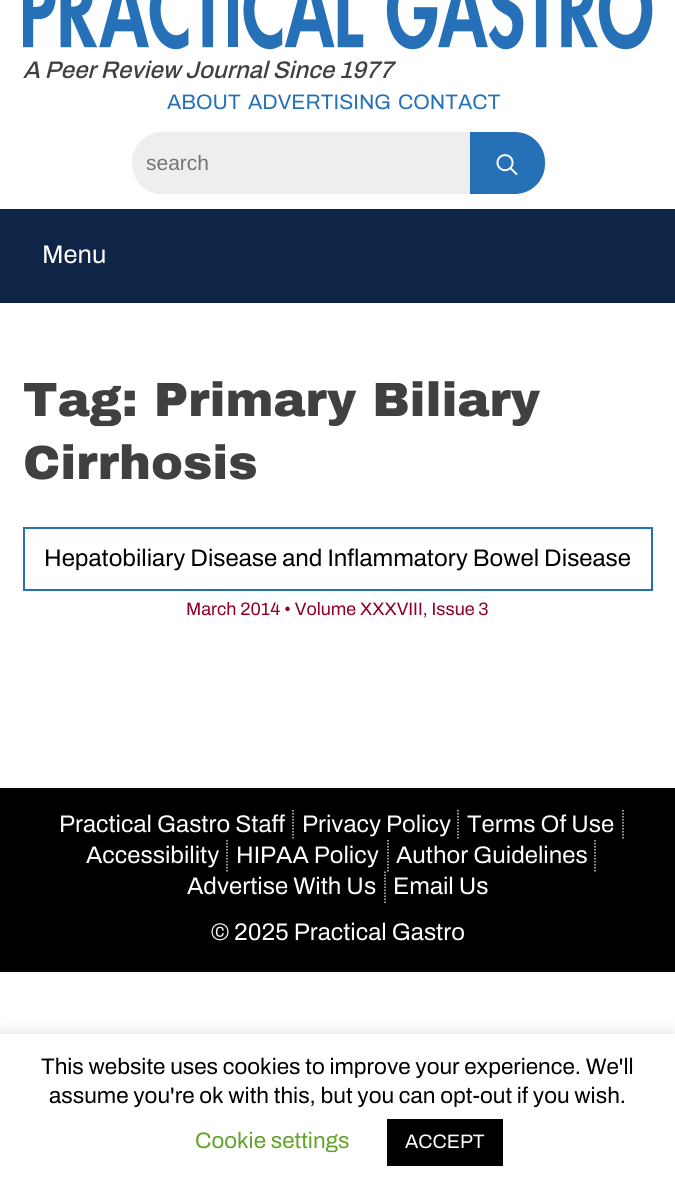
#include <cairo.h>
#include <math.h>
#include <stddef.h>

static cairo_t *c;
static void C(unsigned color){cairo_set_source_rgb(c, (color >> 16) / 255.0, (color >> 8 & 255) / 255.0, (color & 255) / 255.0);}
static void F(const char *family, double size, int italic, int bold){cairo_select_font_face(c, family, italic ? CAIRO_FONT_SLANT_ITALIC : CAIRO_FONT_SLANT_NORMAL,bold ? CAIRO_FONT_WEIGHT_BOLD : CAIRO_FONT_WEIGHT_NORMAL);cairo_set_font_size(c, size);}
static void T(double x, double y, const char *s){cairo_move_to(c, x, y);cairo_show_text(c, s);}
static void R(double x, double y, double w, double h){cairo_rectangle(c, x, y, w, h);cairo_fill(c);}
static void Q(double x, double y, double w, double h, double r){cairo_new_sub_path(c);cairo_arc(c, x + w - r, y + h - r, r, 0, M_PI / 2);cairo_arc(c, x + r, y + h - r, r, M_PI / 2, M_PI);cairo_arc(c, x + r, y + r, r, M_PI, 1.5 * M_PI);cairo_arc(c, x + w - r, y + r, r, 1.5 * M_PI, 2 * M_PI);cairo_close_path(c);}
static void S(double x, double y, double w, double h, double r, double blur, double alpha){cairo_push_group_with_content(c, CAIRO_CONTENT_ALPHA);cairo_set_operator(c, CAIRO_OPERATOR_SOURCE);for (int i = 15; i >= -15 && fmin(w, h) + blur * i / 3 > 0; i -= 2) {double e = blur * i / 6;cairo_set_source_rgba(c, 0, 0, 0, alpha * erfc((i - 1) / 8.5) / 2);Q(x - e, y - e, w + 2 * e, h + 2 * e, fmax(0, fmin(r + e + blur * .6, fmin(w, h) / 2 + e)));cairo_fill(c);}cairo_pattern_t *soft = cairo_pop_group(c);cairo_mask(c, soft);cairo_pattern_destroy(soft);}
static void I(const char *path, double x, double y, double w, double h){cairo_surface_t *image = cairo_image_surface_create_from_png(path);cairo_save(c);cairo_set_source_surface(c, image, x, y);cairo_rectangle(c, x, y, w, h);cairo_fill(c);cairo_restore(c);cairo_surface_destroy(image);}
int main(void) {
cairo_surface_t *surface = cairo_image_surface_create(CAIRO_FORMAT_RGB24, 675, 1191);
c = cairo_create(surface);
cairo_font_options_t *options = cairo_font_options_create();
cairo_font_options_set_hint_metrics(options, CAIRO_HINT_METRICS_OFF);
cairo_font_options_set_hint_style(options, CAIRO_HINT_STYLE_NONE);
cairo_set_font_options(c, options);
cairo_set_miter_limit(c, 4);
C(0xffffff);
cairo_paint(c);
I("1.png",23,0,630,50);
F("Archivo SemiBold",24,1,0);
C(0x404040);
T(23,78,"A Peer Review Journal Since 1977");
F("Archivo SemiBold",21,0,0);
C(0x2670b8);
T(167,109,"ABOUT");
T(248,109,"ADVERTISING");
T(398,109,"CONTACT");
C(0xeeeeee);
cairo_new_path(c);
cairo_move_to(c,162,132);
cairo_line_to(c,470,132);
cairo_line_to(c,470,194);
cairo_line_to(c,162,194);
cairo_curve_to(c,145.5,194,132,180.5,132,164);
cairo_line_to(c,132,162);
cairo_curve_to(c,132,145.5,145.5,132,162,132);
cairo_close_path(c);
cairo_fill(c);
F("Liberation Sans",21,0,0);
C(0x757575);
T(146,170,"search");
C(0x2670b8);
cairo_new_path(c);
cairo_move_to(c,470,132);
cairo_line_to(c,515,132);
cairo_curve_to(c,531.5,132,545,145.5,545,162);
cairo_line_to(c,545,164);
cairo_curve_to(c,545,180.5,531.5,194,515,194);
cairo_line_to(c,470,194);
cairo_close_path(c);
cairo_fill(c);
I("2.png",496,154,22,22);
C(0x0e2548);
R(0,209,675,94);
F("Archivo SemiBold",25.5,0,0);
C(0xffffff);
T(42,263,"Menu");
F("Archivo Black Black",48,0,0);
C(0x404040);
T(23,416,"Tag: Primary Biliary");
T(23,479,"Cirrhosis");
cairo_rectangle(c,24,528,628,62);
C(0x2670b8);
cairo_stroke(c);
F("Archivo SemiBold",24,0,0);
C(0x000000);
T(44,566,"Hepatobiliary Disease and Inflammatory Bowel Disease");
F("Archivo SemiBold",18,0,0);
C(0x900027);
T(186,615,"March 2014 • Volume XXXVIII, Issue 3");
C(0x000000);
R(0,788,675,184);
cairo_new_path(c);
cairo_move_to(c,293,810);
cairo_line_to(c,293,840);
C(0xcccccc);
cairo_set_line_width(c,1.5);
cairo_set_dash(c,(double[]){1.5,1.5},2,0);
cairo_stroke(c);
F("Archivo SemiBold",24,0,0);
C(0xffffff);
T(59,832,"Practical Gastro Staff");
cairo_new_path(c);
cairo_move_to(c,458,810);
cairo_line_to(c,458,840);
C(0xcccccc);
cairo_stroke(c);
C(0xffffff);
T(302,832,"Privacy Policy");
cairo_new_path(c);
cairo_move_to(c,623,810);
cairo_line_to(c,623,840);
C(0xcccccc);
cairo_stroke(c);
C(0xffffff);
T(467,832,"Terms Of Use");
cairo_new_path(c);
cairo_move_to(c,227,840);
cairo_line_to(c,227,871.5);
C(0xcccccc);
cairo_stroke(c);
C(0xffffff);
T(86,863,"Accessibility");
cairo_new_path(c);
cairo_move_to(c,388,840);
cairo_line_to(c,388,871.5);
C(0xcccccc);
cairo_stroke(c);
C(0xffffff);
T(236,863,"HIPAA Policy");
cairo_new_path(c);
cairo_move_to(c,595,840);
cairo_line_to(c,595,871.5);
C(0xcccccc);
cairo_stroke(c);
C(0xffffff);
T(396,863,"Author Guidelines");
cairo_new_path(c);
cairo_move_to(c,385,871.5);
cairo_line_to(c,385,903);
C(0xcccccc);
cairo_stroke(c);
C(0xffffff);
T(187,894,"Advertise With Us");
T(393,894,"Email Us");
T(211,940,"© 2025 Practical Gastro");
cairo_save(c);
cairo_rectangle(c,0,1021,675,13);
cairo_clip(c);
C(0xacabab);
S(0,1032,675,158,0,7.5,.3);
cairo_restore(c);
F("Archivo SemiBold",22.5,0,0);
C(0x000000);
T(41,1074,"This website uses cookies to improve your experience. We'll");
T(49,1103,"assume you're ok with this, but you can opt-out if you wish.");
C(0x62a329);
T(195,1148,"Cookie settings");
C(0x000000);
R(387,1119,116,47);
F("Archivo SemiBold",19.5,0,0);
C(0xffffff);
T(405,1148,"ACCEPT");
cairo_surface_write_to_png(surface, "o.png");
cairo_font_options_destroy(options);
cairo_destroy(c);
cairo_surface_destroy(surface);
return 0;
}
